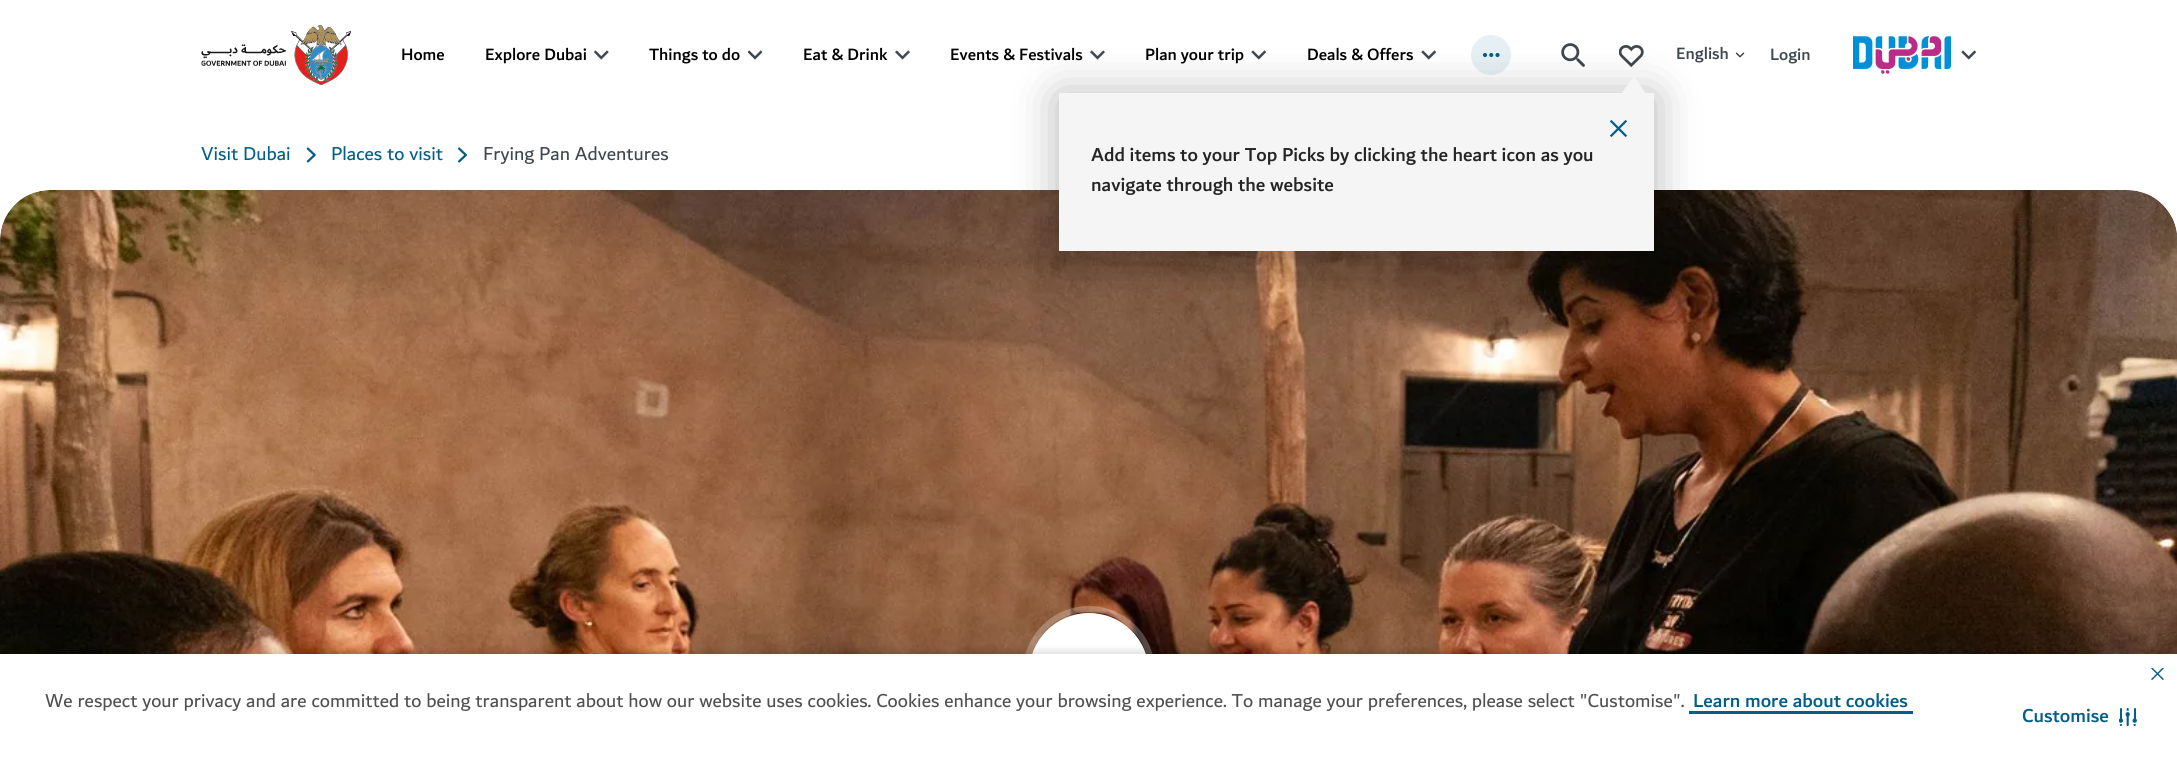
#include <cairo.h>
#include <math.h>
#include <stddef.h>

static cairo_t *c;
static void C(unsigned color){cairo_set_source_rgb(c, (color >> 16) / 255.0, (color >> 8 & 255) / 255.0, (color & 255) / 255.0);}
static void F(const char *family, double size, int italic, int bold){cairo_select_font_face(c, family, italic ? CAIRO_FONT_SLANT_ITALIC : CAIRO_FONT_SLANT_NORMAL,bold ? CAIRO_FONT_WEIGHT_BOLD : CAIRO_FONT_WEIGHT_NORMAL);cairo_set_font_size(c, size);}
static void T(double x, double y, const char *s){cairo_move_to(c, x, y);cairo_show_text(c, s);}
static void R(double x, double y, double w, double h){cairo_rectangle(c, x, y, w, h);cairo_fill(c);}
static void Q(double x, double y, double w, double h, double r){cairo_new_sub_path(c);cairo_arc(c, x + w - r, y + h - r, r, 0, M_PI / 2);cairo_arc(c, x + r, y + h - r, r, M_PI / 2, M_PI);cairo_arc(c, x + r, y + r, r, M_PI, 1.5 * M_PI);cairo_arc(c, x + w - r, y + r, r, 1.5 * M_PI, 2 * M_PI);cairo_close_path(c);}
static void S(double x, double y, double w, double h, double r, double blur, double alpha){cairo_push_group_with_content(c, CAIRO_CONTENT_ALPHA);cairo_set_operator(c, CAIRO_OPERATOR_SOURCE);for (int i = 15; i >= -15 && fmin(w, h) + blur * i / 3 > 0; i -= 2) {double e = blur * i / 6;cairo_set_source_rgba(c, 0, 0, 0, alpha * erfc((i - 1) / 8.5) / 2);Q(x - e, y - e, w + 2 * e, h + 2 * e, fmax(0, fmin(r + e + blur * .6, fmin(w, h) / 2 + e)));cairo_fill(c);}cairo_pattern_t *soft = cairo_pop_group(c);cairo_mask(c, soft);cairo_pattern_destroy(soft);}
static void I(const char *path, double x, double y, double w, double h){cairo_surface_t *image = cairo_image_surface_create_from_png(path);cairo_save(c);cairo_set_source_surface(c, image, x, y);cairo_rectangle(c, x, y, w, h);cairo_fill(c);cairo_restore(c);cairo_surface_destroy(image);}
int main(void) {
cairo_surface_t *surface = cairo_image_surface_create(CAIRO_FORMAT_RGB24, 2177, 781);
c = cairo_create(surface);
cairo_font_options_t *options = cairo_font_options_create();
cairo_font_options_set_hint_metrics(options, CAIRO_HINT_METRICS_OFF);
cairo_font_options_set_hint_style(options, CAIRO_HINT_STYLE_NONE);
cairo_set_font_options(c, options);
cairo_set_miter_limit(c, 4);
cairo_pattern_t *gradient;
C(0xffffff);
cairo_paint(c);
I("1.png",201,25,150,60);
F("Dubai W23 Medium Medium",17.5,0,0);
C(0x000000);
T(401,60,"Home");
T(485,60,"Explore Dubai");
I("2.png",594,50,15,10);
T(649,60,"Things to do");
I("3.png",748,50,15,10);
T(803,60,"Eat & Drink");
I("4.png",895,50,15,10);
T(950,60,"Events & Festivals");
I("4.png",1090,50,15,10);
T(1145,60,"Plan your trip");
I("5.png",1251,50,15,10);
T(1307,60,"Deals & Offers");
I("5.png",1421,50,15,10);
C(0xe6eff3);
cairo_arc(c,1491,55,20,0,2 * M_PI);
cairo_fill(c);
I("6.png",1483,53,17,5);
I("7.png",1561,43,24,24);
C(0x40484f);
T(1676,59,"English");
I("8.png",1735,52,10,6);
T(1770,60,"Login");
I("9.png",1619,45,25,23);
I("14.png",0,190,2177,464);
C(0x000000);
S(1059,96,595,159,0,22.5,.3);
C(0xf5f5f5);
R(1059,93,595,158);
cairo_new_path(c);
cairo_move_to(c,1646,94);
cairo_line_to(c,1621,94);
cairo_line_to(c,1634,76);
cairo_close_path(c);
cairo_fill(c);
I("10.png",1609,119,19,19);
F("Dubai W23 Medium Medium",20,0,0);
C(0x252525);
T(1091,161,"Add items to your Top Picks by clicking the heart icon as you");
T(1091,191,"navigate through the website");
I("11.png",1853,36,98,38);
I("5.png",1961,50,15,10);
F("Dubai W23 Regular",20,0,0);
C(0x035e88);
T(201,160,"Visit Dubai");
I("12.png",306,147,10,16);
T(331,160,"Places to visit");
I("13.png",458,147,9,16);
C(0x40484f);
T(483,160,"Frying Pan Adventures");
Q(1026,609,126,127,63);
cairo_set_source_rgba(c,1,1,1,0.25);
cairo_set_line_width(c,6);
cairo_stroke(c);
C(0xffffff);
cairo_arc(c,1089,673,60,0,2 * M_PI);
cairo_fill(c);
C(0x000000);
S(0,650,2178,128,0,3,.11);
C(0xffffff);
R(0,654,2177,127);
C(0x505050);
T(45,707,"We respect your privacy and are committed to being transparent about how our website uses cookies. Cookies enhance your browsing experience. To manage your preferences, please select \"Customise\".");
gradient = cairo_pattern_create_linear(1801,721,1801,684);
cairo_pattern_add_color_stop_rgba(gradient,0,1,1,1,1);
cairo_pattern_add_color_stop_rgba(gradient,.2,1,1,1,1);
cairo_pattern_add_color_stop_rgba(gradient,.2,0.012,0.369,0.533,1);
cairo_pattern_add_color_stop_rgba(gradient,.27,0.012,0.369,0.533,1);
cairo_pattern_add_color_stop_rgba(gradient,.27,1,1,1,1);
cairo_set_source(c,gradient);
cairo_pattern_destroy(gradient);
R(1689,711,224,3);
F("Dubai W23 Medium Medium",20,0,0);
C(0x035e88);
T(1693,707,"Learn more about cookies");
I("15.png",2151,668,13,12);
T(2022,722,"Customise");
I("16.png",2119,708,18,18);
cairo_surface_write_to_png(surface, "o.png");
cairo_font_options_destroy(options);
cairo_destroy(c);
cairo_surface_destroy(surface);
return 0;
}
